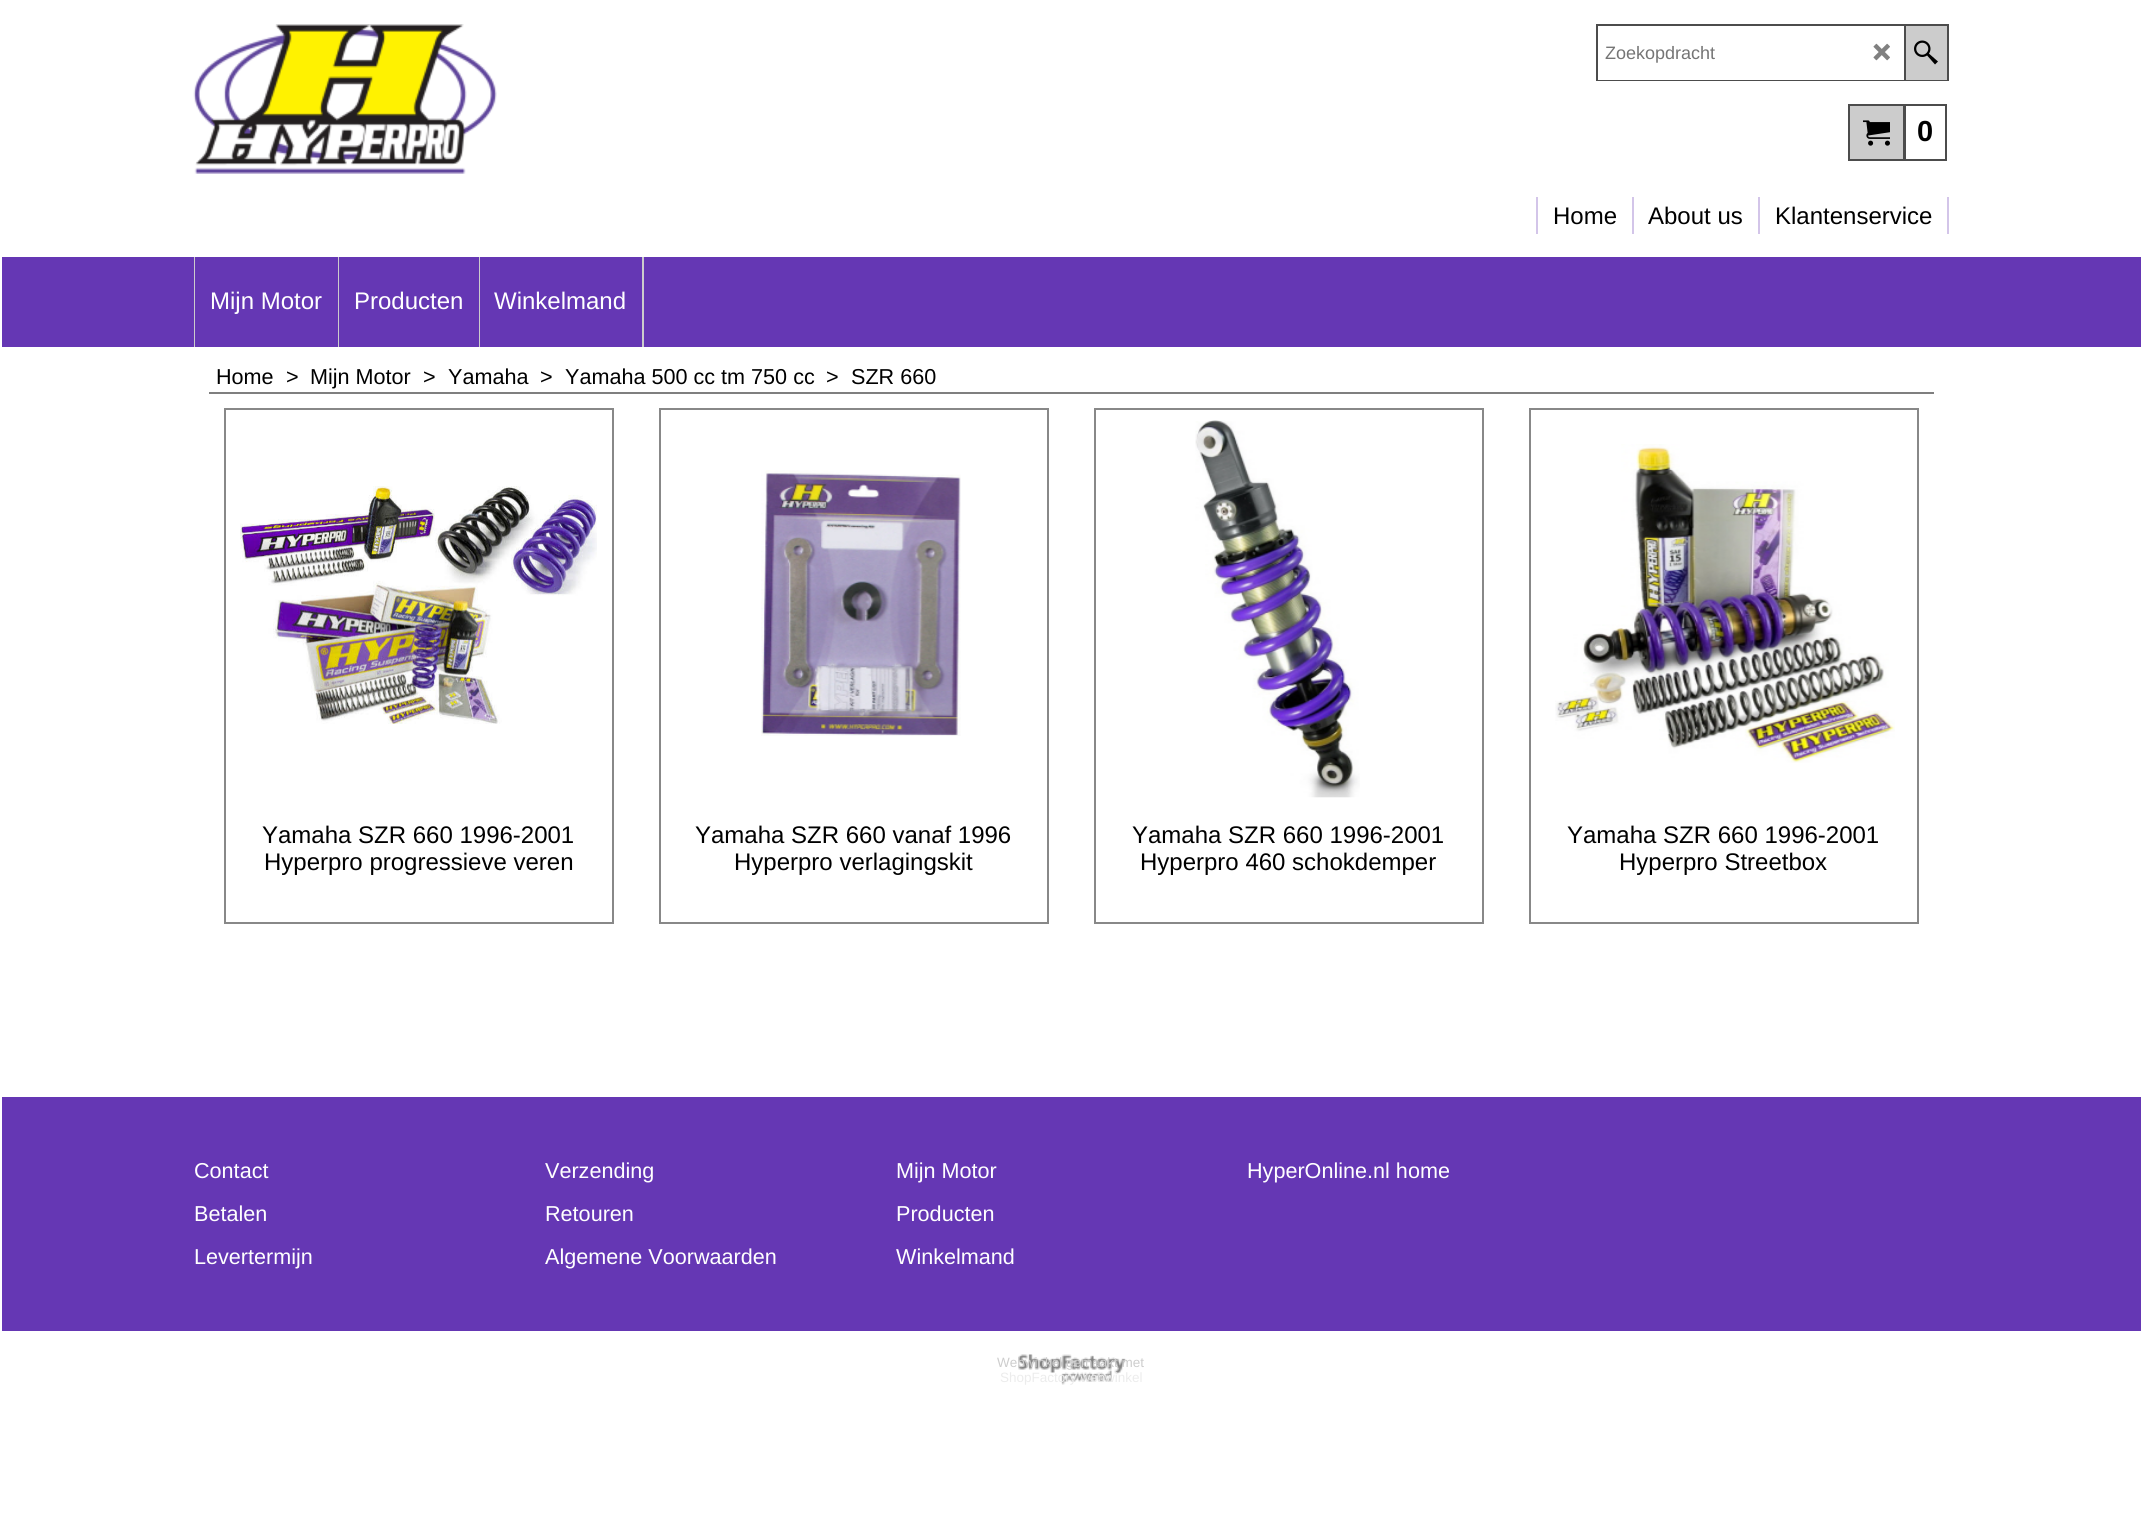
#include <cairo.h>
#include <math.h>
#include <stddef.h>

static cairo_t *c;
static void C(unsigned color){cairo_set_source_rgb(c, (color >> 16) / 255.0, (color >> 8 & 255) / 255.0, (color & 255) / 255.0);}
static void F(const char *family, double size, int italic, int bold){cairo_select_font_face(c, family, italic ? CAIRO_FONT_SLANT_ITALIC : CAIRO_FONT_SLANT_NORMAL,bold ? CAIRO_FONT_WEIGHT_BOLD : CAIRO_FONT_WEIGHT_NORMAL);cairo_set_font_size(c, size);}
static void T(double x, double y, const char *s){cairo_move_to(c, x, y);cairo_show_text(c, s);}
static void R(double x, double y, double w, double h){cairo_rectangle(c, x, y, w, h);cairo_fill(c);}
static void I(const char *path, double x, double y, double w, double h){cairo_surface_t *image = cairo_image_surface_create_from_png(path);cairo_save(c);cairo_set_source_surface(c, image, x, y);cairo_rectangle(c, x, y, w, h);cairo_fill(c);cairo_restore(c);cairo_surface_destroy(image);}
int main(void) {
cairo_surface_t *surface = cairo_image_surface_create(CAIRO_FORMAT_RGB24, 2142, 1531);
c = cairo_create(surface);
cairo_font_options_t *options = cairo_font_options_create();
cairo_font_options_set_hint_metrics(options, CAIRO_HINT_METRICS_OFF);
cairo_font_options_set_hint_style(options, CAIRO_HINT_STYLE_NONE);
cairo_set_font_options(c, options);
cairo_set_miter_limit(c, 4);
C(0xffffff);
cairo_paint(c);
I("1.png",193,24,304,150);
cairo_rectangle(c,1597,25,351,55);
C(0x4c4c4c);
cairo_stroke(c);
C(0xffffff);
R(1598,79,306,1);
F("Liberation Sans",18,0,0);
C(0x757575);
T(1605,59,"Zoekopdracht");
I("2.png",1873,43,17,18);
C(0xcccccc);
R(1906,26,41,54);
C(0x4c4c4c);
R(1904,26,2,54);
I("3.png",1914,40,24,25);
C(0xcccccc);
cairo_rectangle(c,1849,105,55,55);
cairo_fill_preserve(c);
C(0x4c4c4c);
cairo_stroke(c);
I("4.png",1863,120,27,26);
cairo_rectangle(c,1905,105,41,55);
cairo_stroke(c);
F("Liberation Sans",29,0,1);
C(0x000000);
T(1917,141,"0");
C(0xd3c5e9);
R(1536,197,2,37);
F("Liberation Sans",24,0,0);
C(0x000000);
T(1553,224,"Home");
C(0xd3c5e9);
R(1632,197,2,37);
C(0x000000);
T(1648,224,"About us");
C(0xd3c5e9);
R(1758,197,2,37);
C(0x000000);
T(1775,224,"Klantenservice");
C(0xd3c5e9);
R(1947,197,2,37);
C(0x6537b4);
R(2,257,2139,90);
C(0xcccccc);
R(194,257,1,90);
C(0xffffff);
T(210,309,"Mijn Motor");
C(0xcccccc);
R(338,257,1,90);
C(0xffffff);
T(354,309,"Producten");
C(0xcccccc);
R(479,257,1,90);
C(0xffffff);
T(494,309,"Winkelmand");
C(0xcccccc);
R(642,257,2,90);
C(0x7f7f7f);
R(209,392,1725,2);
F("Liberation Sans",21.6,0,0);
C(0x000000);
T(216,384,"Home");
T(286,384,">");
T(310,384,"Mijn Motor");
T(423,384,">");
T(448,384,"Yamaha");
T(540,384,">");
T(565,384,"Yamaha 500 cc tm 750 cc");
T(826,384,">");
T(851,384,"SZR 660");
cairo_rectangle(c,225,409,388,514);
C(0x888888);
cairo_stroke(c);
I("5.png",240,486,357,238);
F("Liberation Sans",24,0,0);
C(0x000000);
T(262,843,"Yamaha SZR 660 1996-2001");
T(264,870,"Hyperpro progressieve veren");
cairo_rectangle(c,660,409,388,514);
C(0x888888);
cairo_stroke(c);
I("6.png",761,470,200,266);
C(0x000000);
T(695,843,"Yamaha SZR 660 vanaf 1996");
T(734,870,"Hyperpro verlagingskit");
cairo_rectangle(c,1095,409,388,514);
C(0x888888);
cairo_stroke(c);
I("7.png",1195,420,165,378);
C(0x000000);
T(1132,843,"Yamaha SZR 660 1996-2001");
T(1140,870,"Hyperpro 460 schokdemper");
cairo_rectangle(c,1530,409,388,514);
C(0x888888);
cairo_stroke(c);
I("8.png",1555,444,340,319);
C(0x000000);
T(1567,843,"Yamaha SZR 660 1996-2001");
T(1619,870,"Hyperpro Streetbox");
C(0x6537b4);
R(2,1097,2139,234);
F("Liberation Sans",21.6,0,0);
C(0xffffff);
T(194,1178,"Contact");
T(194,1221,"Betalen");
T(194,1264,"Levertermijn");
T(545,1178,"Verzending");
T(545,1221,"Retouren");
T(545,1264,"Algemene Voorwaarden");
T(896,1178,"Mijn Motor");
T(896,1221,"Producten");
T(896,1264,"Winkelmand");
T(1247,1178,"HyperOnline.nl home");
I("9.png",1018,1354,108,31);
F("Liberation Sans",13.5,0,0);
C(0xcdcdcd);
T(997,1367,"Webwinkel gemaakt met");
C(0xececec);
T(1000,1382,"ShopFactory webwinkel");
cairo_surface_write_to_png(surface, "o.png");
cairo_font_options_destroy(options);
cairo_destroy(c);
cairo_surface_destroy(surface);
return 0;
}
